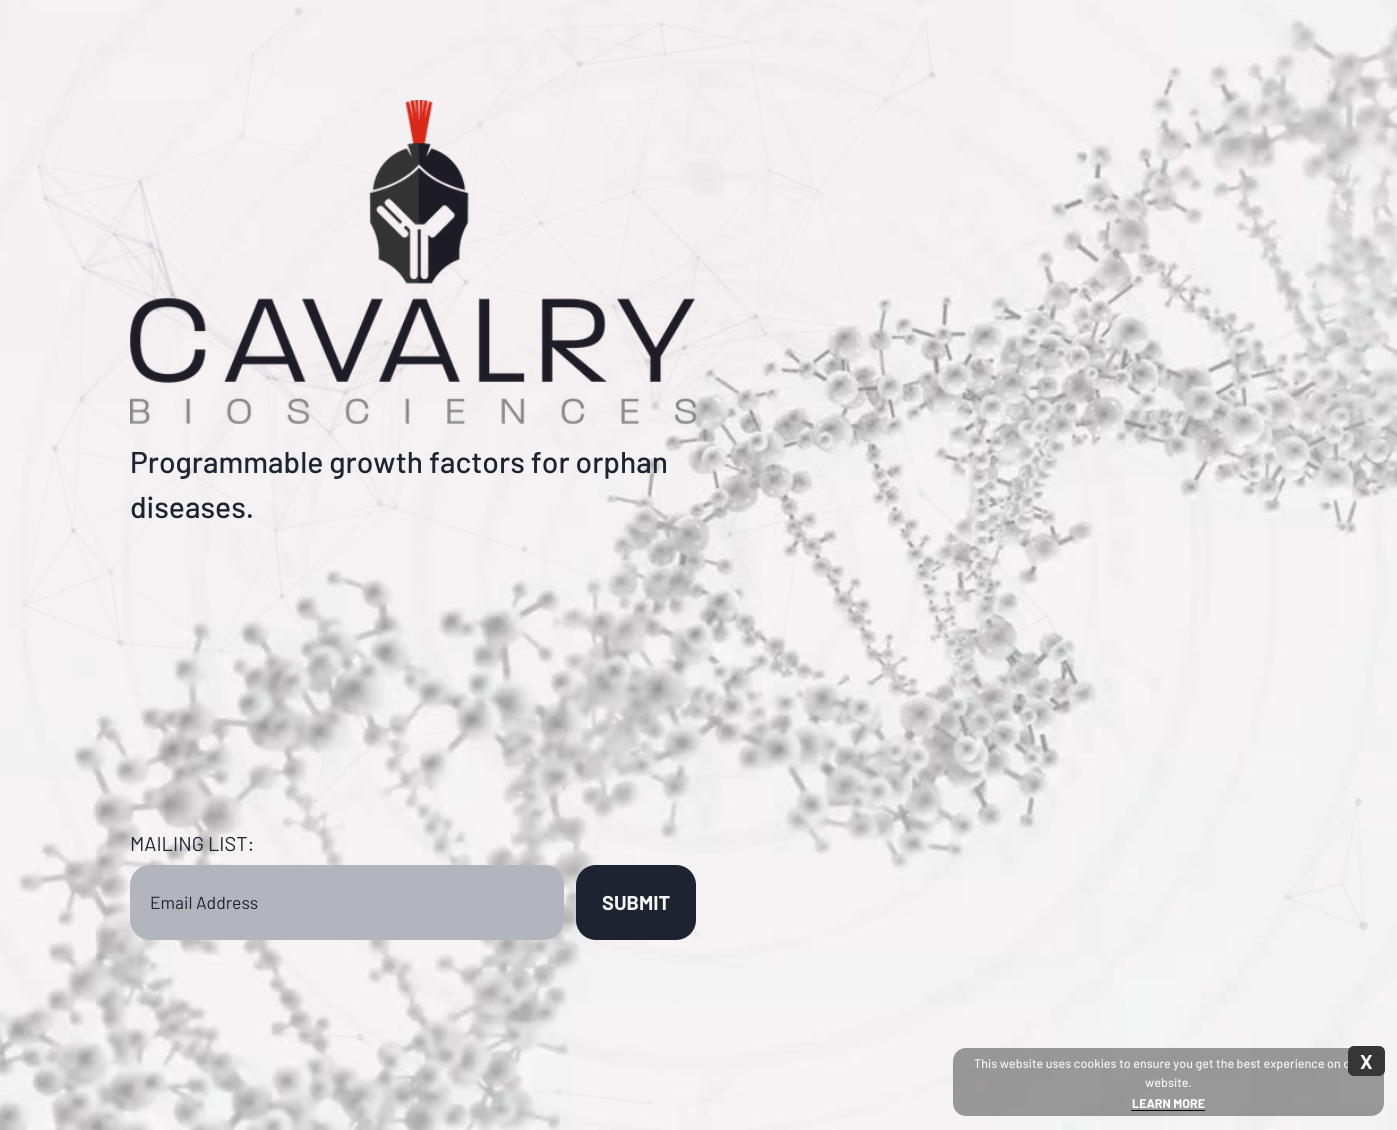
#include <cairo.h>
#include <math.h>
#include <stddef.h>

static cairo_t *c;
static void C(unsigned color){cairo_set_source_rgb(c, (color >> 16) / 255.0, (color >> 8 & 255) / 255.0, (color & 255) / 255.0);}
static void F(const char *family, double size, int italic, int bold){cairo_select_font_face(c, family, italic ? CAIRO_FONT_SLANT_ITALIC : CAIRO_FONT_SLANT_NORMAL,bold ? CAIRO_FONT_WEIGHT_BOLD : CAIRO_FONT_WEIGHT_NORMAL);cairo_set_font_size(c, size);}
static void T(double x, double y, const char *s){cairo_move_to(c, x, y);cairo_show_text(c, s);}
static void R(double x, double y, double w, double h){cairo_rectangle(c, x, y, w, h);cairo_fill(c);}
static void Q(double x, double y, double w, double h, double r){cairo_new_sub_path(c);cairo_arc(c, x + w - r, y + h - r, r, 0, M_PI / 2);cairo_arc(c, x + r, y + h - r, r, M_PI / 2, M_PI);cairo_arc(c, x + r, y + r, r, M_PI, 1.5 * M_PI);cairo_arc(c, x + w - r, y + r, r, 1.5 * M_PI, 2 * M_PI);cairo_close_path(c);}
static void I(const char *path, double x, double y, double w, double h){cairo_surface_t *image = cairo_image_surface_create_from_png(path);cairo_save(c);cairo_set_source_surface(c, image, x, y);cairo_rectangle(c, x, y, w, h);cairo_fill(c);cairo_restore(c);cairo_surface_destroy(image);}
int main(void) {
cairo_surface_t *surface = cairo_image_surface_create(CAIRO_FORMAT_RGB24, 1397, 1130);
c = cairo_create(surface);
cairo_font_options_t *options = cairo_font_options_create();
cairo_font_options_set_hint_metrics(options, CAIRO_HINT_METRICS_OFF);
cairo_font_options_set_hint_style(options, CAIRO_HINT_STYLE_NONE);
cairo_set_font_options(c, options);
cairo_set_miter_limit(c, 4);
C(0xf4f4f5);
cairo_paint(c);
I("1.png",0,0,1397,1130);
I("2.png",22,7,1346,1097);
I("3.png",130,100,567,324);
F("Barlow Medium",30,0,0);
C(0x1e2331);
T(130,473,"Programmable growth factors for orphan");
T(130,518,"diseases.");
F("Barlow",20,0,0);
T(130,851,"MAILING LIST:");
C(0xb3b5bc);
Q(130,865,434,75,20);
cairo_fill(c);
F("Barlow",17.5,0,0);
C(0x1e2331);
T(150,909,"Email Address");
Q(576,865,120,75,20);
cairo_fill(c);
F("Barlow",20,0,1);
C(0xf4f4f5);
T(602,910,"SUBMIT");
cairo_set_source_rgba(c,0.239,0.239,0.239,0.5);
Q(953,1048,431,68,13);
cairo_fill(c);
F("Barlow Medium",12.5,0,0);
C(0xf4f4f5);
T(974,1068,"This website uses cookies to ensure you get the best experience on o");
T(1145,1087,"website.");
F("Barlow",12.5,0,1);
C(0xffffff);
T(1132,1108,"LEARN MORE");
C(0x030303);
R(1131,1110,74,1);
C(0x363636);
Q(1348,1046,37,30,6);
cairo_fill(c);
F("Barlow",20,0,1);
C(0xffffff);
T(1360,1069,"X");
cairo_surface_write_to_png(surface, "o.png");
cairo_font_options_destroy(options);
cairo_destroy(c);
cairo_surface_destroy(surface);
return 0;
}
